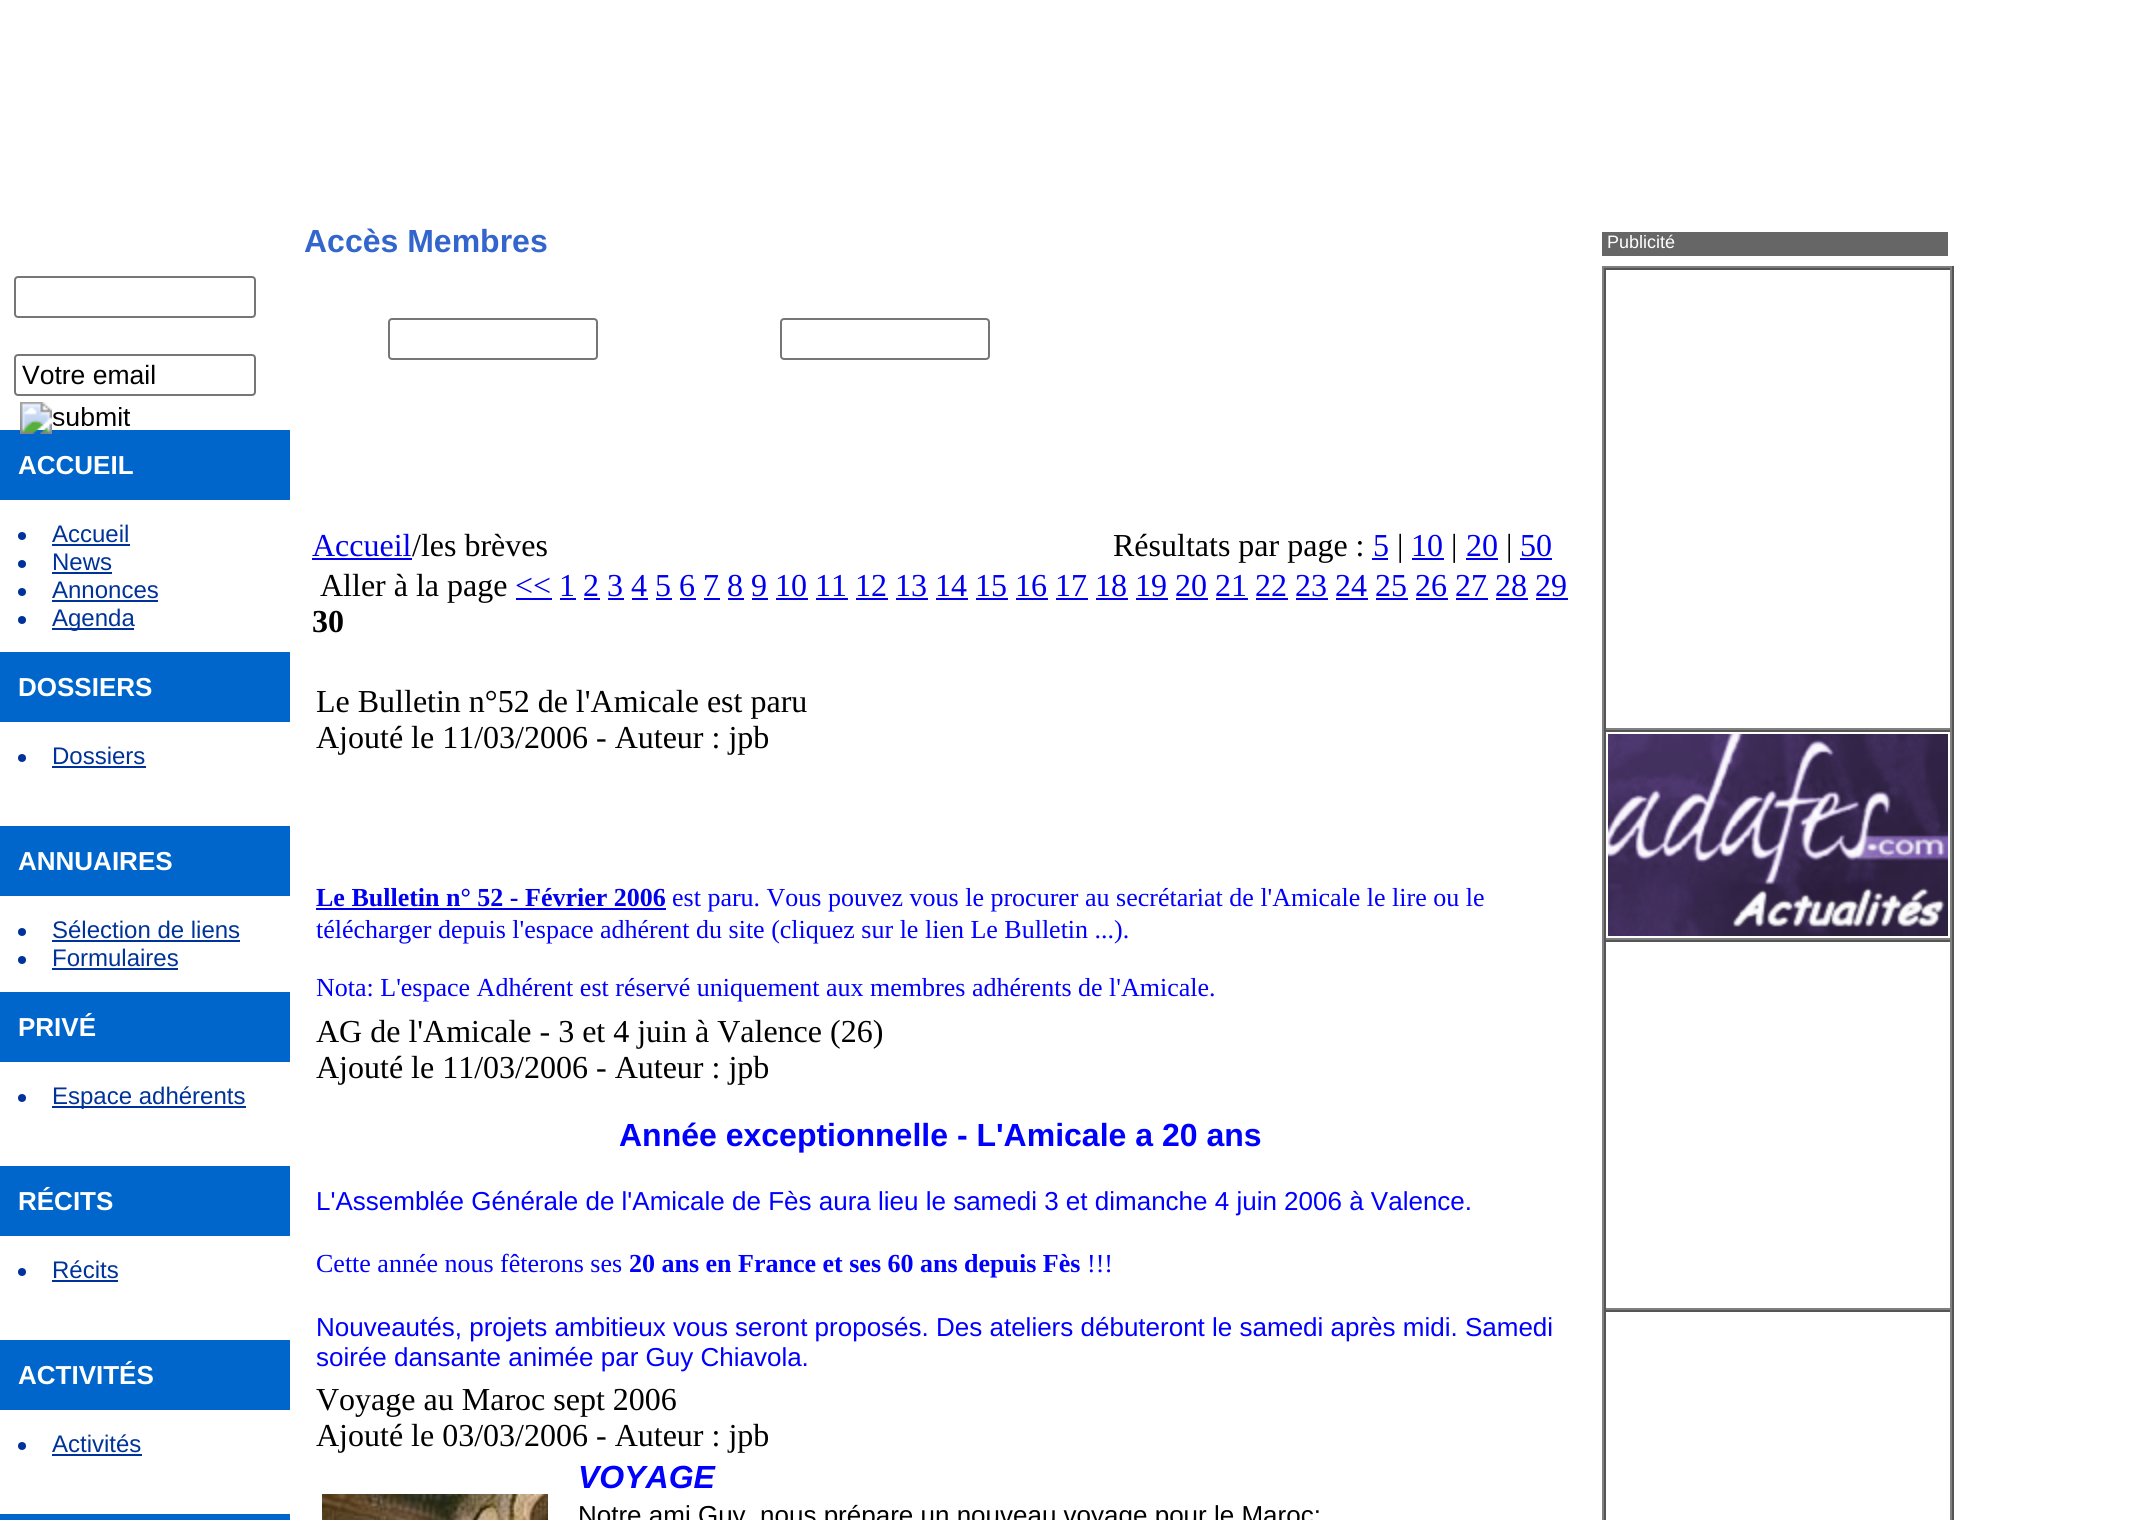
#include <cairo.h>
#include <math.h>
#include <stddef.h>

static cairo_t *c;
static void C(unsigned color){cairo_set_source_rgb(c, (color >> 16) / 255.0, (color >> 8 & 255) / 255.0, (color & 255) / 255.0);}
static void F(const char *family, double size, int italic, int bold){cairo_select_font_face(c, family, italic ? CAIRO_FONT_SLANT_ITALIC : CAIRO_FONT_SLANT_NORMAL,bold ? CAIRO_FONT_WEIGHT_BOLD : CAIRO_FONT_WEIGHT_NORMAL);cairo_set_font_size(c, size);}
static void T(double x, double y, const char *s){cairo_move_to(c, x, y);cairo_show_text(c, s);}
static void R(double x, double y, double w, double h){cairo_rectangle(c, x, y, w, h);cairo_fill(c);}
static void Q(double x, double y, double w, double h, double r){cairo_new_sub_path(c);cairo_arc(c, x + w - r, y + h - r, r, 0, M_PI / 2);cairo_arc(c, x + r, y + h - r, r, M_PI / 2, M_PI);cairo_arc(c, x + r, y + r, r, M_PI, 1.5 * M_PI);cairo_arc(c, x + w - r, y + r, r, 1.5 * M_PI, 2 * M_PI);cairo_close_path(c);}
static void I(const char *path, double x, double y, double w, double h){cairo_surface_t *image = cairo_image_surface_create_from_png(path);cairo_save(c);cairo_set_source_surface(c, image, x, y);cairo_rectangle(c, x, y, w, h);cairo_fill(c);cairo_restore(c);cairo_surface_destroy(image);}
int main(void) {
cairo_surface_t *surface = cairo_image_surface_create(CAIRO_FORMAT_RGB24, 2153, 1520);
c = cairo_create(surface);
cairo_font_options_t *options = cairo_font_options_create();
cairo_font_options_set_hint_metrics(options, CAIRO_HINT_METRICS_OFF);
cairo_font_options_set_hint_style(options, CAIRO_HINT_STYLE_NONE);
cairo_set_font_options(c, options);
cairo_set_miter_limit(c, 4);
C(0xffffff);
cairo_paint(c);
F("Liberation Sans",32,0,1);
C(0x3366cc);
T(304,252,"Accès Membres");
Q(389,319,208,40,3);
C(0x767676);
cairo_stroke(c);
Q(781,319,208,40,3);
cairo_stroke(c);
C(0x666666);
R(1602,232,346,24);
F("Liberation Sans",18,0,0);
C(0xffffff);
T(1607,248,"Publicité");
Q(15,277,240,40,3);
C(0x767676);
cairo_stroke(c);
Q(15,355,240,40,3);
cairo_stroke(c);
F("Liberation Sans",26.5,0,0);
C(0x000000);
T(22,384,"Votre email");
C(0x0066cc);
R(0,430,290,70);
I("1.png",20,402,110,32);
C(0x808080);
R(1602,266,352,2);
C(0x555555);
R(1952,266,2,1254);
C(0x808080);
R(1602,266,2,1254);
C(0x555555);
R(1604,268,348,2);
C(0x808080);
R(1950,268,2,462);
R(1604,728,348,2);
C(0x555555);
R(1604,268,2,462);
R(1604,730,348,2);
C(0x808080);
R(1950,730,2,210);
R(1604,938,348,2);
C(0x555555);
R(1604,730,2,210);
I("2.png",1608,734,340,202);
R(1604,940,348,2);
C(0x808080);
R(1950,940,2,370);
R(1604,1308,348,2);
C(0x555555);
R(1604,940,2,370);
R(1604,1310,348,2);
C(0x808080);
R(1950,1310,2,210);
C(0x555555);
R(1604,1310,2,210);
F("Liberation Sans",26,0,1);
C(0xffffff);
T(18,474,"ACCUEIL");
C(0x003399);
cairo_new_path(c);
cairo_arc(c,22,536,4,0,2 * M_PI);
cairo_fill(c);
F("Liberation Sans",24,0,0);
T(52,542,"Accueil");
R(52,544,78,2);
cairo_new_path(c);
cairo_arc(c,22,564,4,0,2 * M_PI);
cairo_fill(c);
T(52,570,"News");
R(52,572,60,2);
cairo_new_path(c);
cairo_arc(c,22,592,4,0,2 * M_PI);
cairo_fill(c);
T(52,598,"Annonces");
R(52,600,106,2);
cairo_new_path(c);
cairo_arc(c,22,620,4,0,2 * M_PI);
cairo_fill(c);
R(52,628,82,2);
T(52,626,"Agenda");
C(0x0066cc);
R(0,652,290,70);
F("Liberation Sans",26,0,1);
C(0xffffff);
T(18,696,"DOSSIERS");
C(0x003399);
cairo_new_path(c);
cairo_arc(c,22,758,4,0,2 * M_PI);
cairo_fill(c);
F("Liberation Sans",24,0,0);
T(52,764,"Dossiers");
R(52,766,94,2);
C(0x0066cc);
R(0,826,290,70);
F("Liberation Sans",26,0,1);
C(0xffffff);
T(18,870,"ANNUAIRES");
C(0x003399);
cairo_new_path(c);
cairo_arc(c,22,932,4,0,2 * M_PI);
cairo_fill(c);
F("Liberation Sans",24,0,0);
T(52,938,"Sélection de liens");
R(52,940,188,2);
cairo_new_path(c);
cairo_arc(c,22,960,4,0,2 * M_PI);
cairo_fill(c);
T(52,966,"Formulaires");
R(52,968,126,2);
C(0x0066cc);
R(0,992,290,70);
F("Liberation Sans",26,0,1);
C(0xffffff);
T(18,1036,"PRIVÉ");
C(0x003399);
cairo_new_path(c);
cairo_arc(c,22,1098,4,0,2 * M_PI);
cairo_fill(c);
R(52,1106,194,2);
F("Liberation Sans",24,0,0);
T(52,1104,"Espace adhérents");
C(0x0066cc);
R(0,1166,290,70);
F("Liberation Sans",26,0,1);
C(0xffffff);
T(18,1210,"RÉCITS");
C(0x003399);
cairo_new_path(c);
cairo_arc(c,22,1272,4,0,2 * M_PI);
cairo_fill(c);
F("Liberation Sans",24,0,0);
T(52,1278,"Récits");
R(52,1280,66,2);
C(0x0066cc);
R(0,1340,290,70);
F("Liberation Sans",26,0,1);
C(0xffffff);
T(18,1384,"ACTIVITÉS");
C(0x003399);
cairo_new_path(c);
cairo_arc(c,22,1446,4,0,2 * M_PI);
cairo_fill(c);
F("Liberation Sans",24,0,0);
T(52,1452,"Activités");
R(52,1454,90,2);
C(0x0066cc);
R(0,1514,290,6);
F("Liberation Serif",32,0,0);
C(0x0000ee);
T(312,556,"Accueil");
R(312,558,100,2);
C(0x000000);
T(412,556,"/les brèves");
T(1113,556,"Résultats par page :");
C(0x0000ee);
T(1373,556,"5");
R(1372,558,16,2);
C(0x000000);
T(1397,556,"|");
C(0x0000ee);
T(1411,556,"10");
R(1412,558,32,2);
C(0x000000);
T(1451,556,"|");
C(0x0000ee);
T(1466,556,"20");
R(1466,558,32,2);
C(0x000000);
T(1506,556,"|");
C(0x0000ee);
T(1520,556,"50");
R(1520,558,32,2);
C(0x000000);
T(320,596,"Aller à la page");
C(0x0000ee);
T(515,596,"<< 1 2 3 4 5 6 7 8 9 10 11 12 13 14 15 16 17 18 19 20 21 22 23 24 25 26 27 28 29");
R(516,598,36,2);
R(560,598,16,2);
R(584,598,16,2);
R(608,598,16,2);
R(632,598,16,2);
R(656,598,16,2);
R(680,598,16,2);
R(704,598,16,2);
R(728,598,16,2);
R(752,598,16,2);
R(776,598,32,2);
R(816,598,32,2);
R(856,598,32,2);
R(896,598,32,2);
R(936,598,32,2);
R(976,598,32,2);
R(1016,598,32,2);
R(1056,598,32,2);
R(1096,598,32,2);
R(1136,598,32,2);
R(1176,598,32,2);
R(1216,598,32,2);
R(1256,598,32,2);
R(1296,598,32,2);
R(1336,598,32,2);
R(1376,598,32,2);
R(1416,598,32,2);
R(1456,598,32,2);
R(1496,598,32,2);
R(1536,598,32,2);
F("Liberation Serif",32,0,1);
C(0x000000);
T(312,632,"30");
F("Liberation Serif",32,0,0);
T(316,712,"Le Bulletin n°52 de l'Amicale est paru");
T(316,748,"Ajouté le 11/03/2006 - Auteur : jpb");
F("Liberation Serif",26,0,1);
C(0x0000ee);
T(316,906,"Le Bulletin n° 52 - Février 2006");
R(316,908,350,2);
F("Liberation Serif",26,0,0);
C(0x0000ff);
T(672,906,"est paru. Vous pouvez vous le procurer au secrétariat de l'Amicale le lire ou le");
T(316,938,"télécharger depuis l'espace adhérent du site (cliquez sur le lien Le Bulletin ...).");
T(316,996,"Nota: L'espace Adhérent est réservé uniquement aux membres adhérents de l'Amicale.");
F("Liberation Serif",32,0,0);
C(0x000000);
T(316,1042,"AG de l'Amicale - 3 et 4 juin à Valence (26)");
T(316,1078,"Ajouté le 11/03/2006 - Auteur : jpb");
F("Liberation Sans",32,0,1);
C(0x0000ff);
T(619,1146,"Année exceptionnelle - L'Amicale a 20 ans");
F("Liberation Sans",26,0,0);
T(316,1210,"L'Assemblée Générale de l'Amicale de Fès aura lieu le samedi 3 et dimanche 4 juin 2006 à Valence.");
F("Liberation Serif",26,0,0);
T(316,1272,"Cette année nous fêterons ses");
F("Liberation Serif",26,0,1);
T(629,1272,"20 ans en France et ses 60 ans depuis Fès");
F("Liberation Serif",26,0,0);
T(1087,1272,"!!!");
F("Liberation Sans",26,0,0);
T(316,1336,"Nouveautés, projets ambitieux vous seront proposés. Des ateliers débuteront le samedi après midi. Samedi");
T(316,1366,"soirée dansante animée par Guy Chiavola.");
F("Liberation Serif",32,0,0);
C(0x000000);
T(316,1410,"Voyage au Maroc sept 2006");
T(316,1446,"Ajouté le 03/03/2006 - Auteur : jpb");
I("3.png",322,1494,226,26);
F("Liberation Sans",32,1,1);
C(0x0000ff);
T(578,1488,"VOYAGE");
F("Liberation Sans",26,0,0);
C(0x000000);
T(578,1524,"Notre ami Guy  nous prépare un nouveau voyage pour le Maroc:");
cairo_surface_write_to_png(surface, "o.png");
cairo_font_options_destroy(options);
cairo_destroy(c);
cairo_surface_destroy(surface);
return 0;
}
